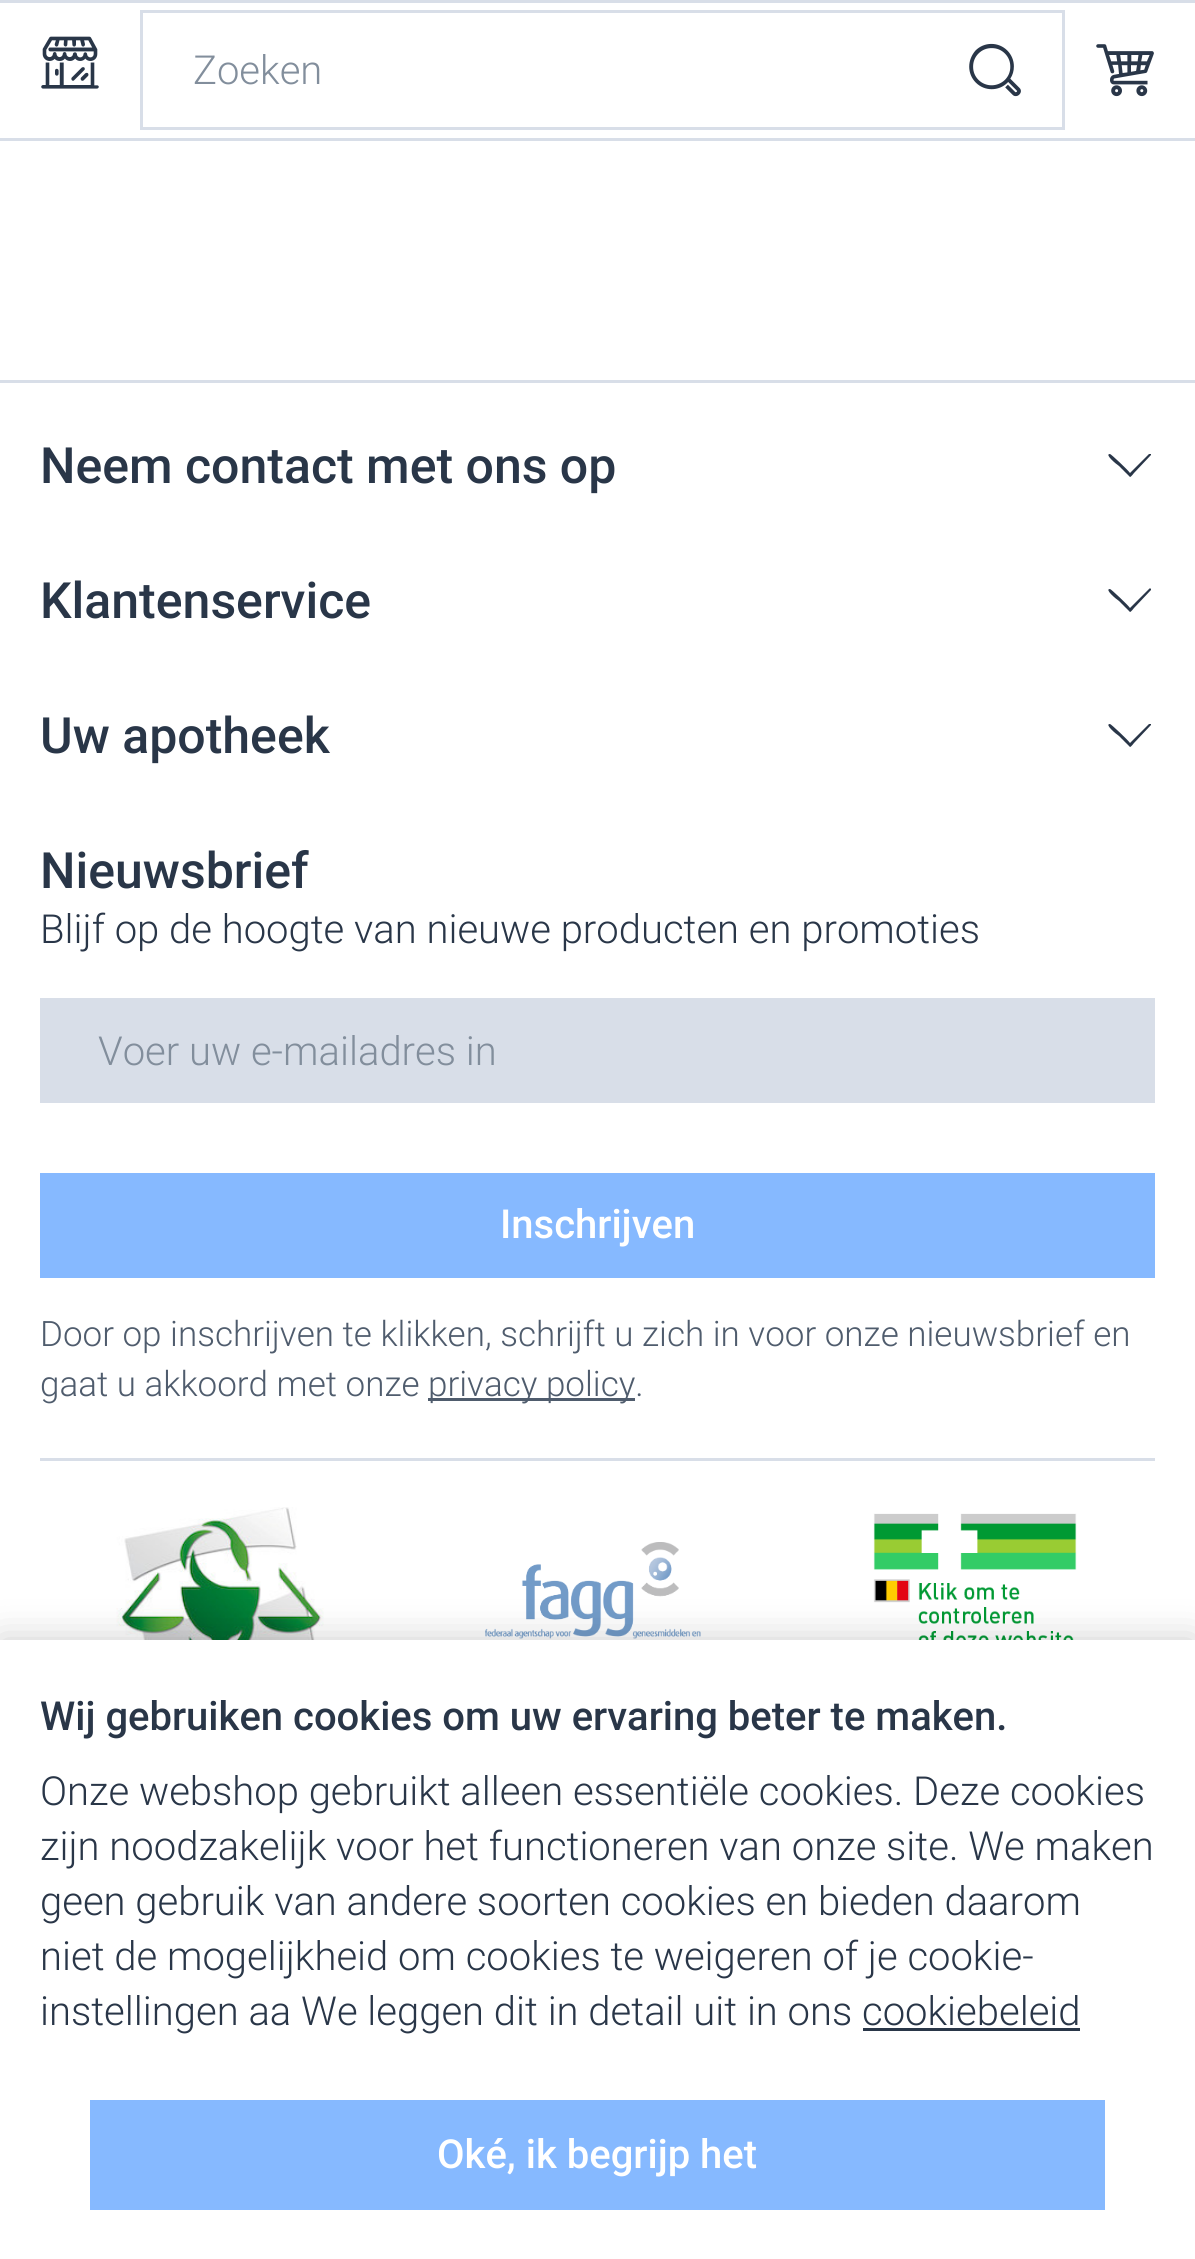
#include <cairo.h>
#include <math.h>
#include <stddef.h>

static cairo_t *c;
static void C(unsigned color){cairo_set_source_rgb(c, (color >> 16) / 255.0, (color >> 8 & 255) / 255.0, (color & 255) / 255.0);}
static void F(const char *family, double size, int italic, int bold){cairo_select_font_face(c, family, italic ? CAIRO_FONT_SLANT_ITALIC : CAIRO_FONT_SLANT_NORMAL,bold ? CAIRO_FONT_WEIGHT_BOLD : CAIRO_FONT_WEIGHT_NORMAL);cairo_set_font_size(c, size);}
static void T(double x, double y, const char *s){cairo_move_to(c, x, y);cairo_show_text(c, s);}
static void R(double x, double y, double w, double h){cairo_rectangle(c, x, y, w, h);cairo_fill(c);}
static void Q(double x, double y, double w, double h, double r){cairo_new_sub_path(c);cairo_arc(c, x + w - r, y + h - r, r, 0, M_PI / 2);cairo_arc(c, x + r, y + h - r, r, M_PI / 2, M_PI);cairo_arc(c, x + r, y + r, r, M_PI, 1.5 * M_PI);cairo_arc(c, x + w - r, y + r, r, 1.5 * M_PI, 2 * M_PI);cairo_close_path(c);}
static void S(double x, double y, double w, double h, double r, double blur, double alpha){cairo_push_group_with_content(c, CAIRO_CONTENT_ALPHA);cairo_set_operator(c, CAIRO_OPERATOR_SOURCE);for (int i = 15; i >= -15 && fmin(w, h) + blur * i / 3 > 0; i -= 2) {double e = blur * i / 6;cairo_set_source_rgba(c, 0, 0, 0, alpha * erfc((i - 1) / 8.5) / 2);Q(x - e, y - e, w + 2 * e, h + 2 * e, fmax(0, fmin(r + e + blur * .6, fmin(w, h) / 2 + e)));cairo_fill(c);}cairo_pattern_t *soft = cairo_pop_group(c);cairo_mask(c, soft);cairo_pattern_destroy(soft);}
static void I(const char *path, double x, double y, double w, double h){cairo_surface_t *image = cairo_image_surface_create_from_png(path);cairo_save(c);cairo_set_source_surface(c, image, x, y);cairo_rectangle(c, x, y, w, h);cairo_fill(c);cairo_restore(c);cairo_surface_destroy(image);}
int main(void) {
cairo_surface_t *surface = cairo_image_surface_create(CAIRO_FORMAT_RGB24, 1195, 2259);
c = cairo_create(surface);
cairo_font_options_t *options = cairo_font_options_create();
cairo_font_options_set_hint_metrics(options, CAIRO_HINT_METRICS_OFF);
cairo_font_options_set_hint_style(options, CAIRO_HINT_STYLE_NONE);
cairo_set_font_options(c, options);
cairo_set_miter_limit(c, 4);
C(0xffffff);
cairo_paint(c);
C(0xd8dee8);
R(0,0,1195,3);
R(0,138,1195,3);
I("1.png",41,36,58,53);
cairo_rectangle(c,141.5,11.5,922,117);
cairo_set_line_width(c,3);
cairo_stroke(c);
F("Roboto Light",40,0,0);
C(0x828e9c);
T(193,84,"Zoeken");
I("2.png",969,43,52,54);
I("3.png",1096,44,58,53);
C(0xd8dee8);
R(0,380,1195,3);
F("Roboto Medium",50,0,0);
C(0x293648);
T(40,483,"Neem contact met ons op");
cairo_new_path(c);
cairo_move_to(c,1151,454);
cairo_curve_to(c,1150,454,1150,454,1149,454);
cairo_line_to(c,1130,473);
cairo_curve_to(c,1128,470,1111,454,1110,454);
cairo_curve_to(c,1104,454,1116,464,1119,466);
cairo_line_to(c,1130,477);
cairo_curve_to(c,1131,477,1134,473,1134,473);
cairo_line_to(c,1151,455);
cairo_close_path(c);
cairo_fill(c);
T(40,618,"Klantenservice");
cairo_new_path(c);
cairo_move_to(c,1151,589);
cairo_curve_to(c,1150,588,1150,588,1149,589);
cairo_line_to(c,1130,608);
cairo_curve_to(c,1128,605,1111,589,1110,589);
cairo_curve_to(c,1104,589,1116,599,1119,601);
cairo_line_to(c,1130,612);
cairo_curve_to(c,1131,612,1134,608,1134,608);
cairo_line_to(c,1151,590);
cairo_close_path(c);
cairo_fill(c);
T(40,753,"Uw apotheek");
cairo_new_path(c);
cairo_move_to(c,1151,724);
cairo_curve_to(c,1150,724,1150,724,1149,724);
cairo_line_to(c,1130,743);
cairo_curve_to(c,1128,740,1111,724,1110,724);
cairo_curve_to(c,1104,724,1116,734,1119,736);
cairo_line_to(c,1130,747);
cairo_curve_to(c,1131,747,1134,743,1134,743);
cairo_line_to(c,1151,725);
cairo_close_path(c);
cairo_fill(c);
T(40,888,"Nieuwsbrief");
F("Roboto Light",40,0,0);
T(40,943,"Blijf op de hoogte van nieuwe producten en promoties");
C(0xd8dee8);
R(40,998,1115,105);
C(0x828e9c);
T(98,1065,"Voer uw e-mailadres in");
C(0x86b9ff);
R(40,1173,1115,105);
F("Roboto Medium",40,0,0);
C(0xffffff);
T(500,1238,"Inschrijven");
F("Roboto Light",35,0,0);
C(0x4f5c6d);
T(40,1346,"Door op inschrijven te klikken, schrijft u zich in voor onze nieuwsbrief en");
T(40,1396,"gaat u akkoord met onze");
R(428,1398,207,3);
T(428,1396,"privacy policy.");
C(0xd8dee8);
R(40,1458,1115,3);
I("4.png",116,1507,208,133);
I("5.png",485,1542,216,97);
I("6.png",873,1513,204,127);
C(0x000000);
S(0,1640,1195,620,0,19,.2);
C(0xffffff);
R(0,1640,1195,619);
F("Roboto Medium",40,0,0);
C(0x293648);
T(40,1730,"Wij gebruiken cookies om uw ervaring beter te maken.");
F("Roboto Light",40,0,0);
T(40,1805,"Onze webshop gebruikt alleen essentiële cookies. Deze cookies");
T(40,1860,"zijn noodzakelijk voor het functioneren van onze site. We maken");
T(40,1915,"geen gebruik van andere soorten cookies en bieden daarom");
T(40,1970,"niet de mogelijkheid om cookies te weigeren of je cookie-");
T(40,2025,"instellingen aa We leggen dit in detail uit in ons cookiebeleid");
R(863,2028,217,3);
C(0x86b9ff);
R(90,2100,1015,110);
F("Roboto Medium",40,0,0);
C(0xffffff);
T(437,2168,"Oké, ik begrijp het");
cairo_surface_write_to_png(surface, "o.png");
cairo_font_options_destroy(options);
cairo_destroy(c);
cairo_surface_destroy(surface);
return 0;
}
